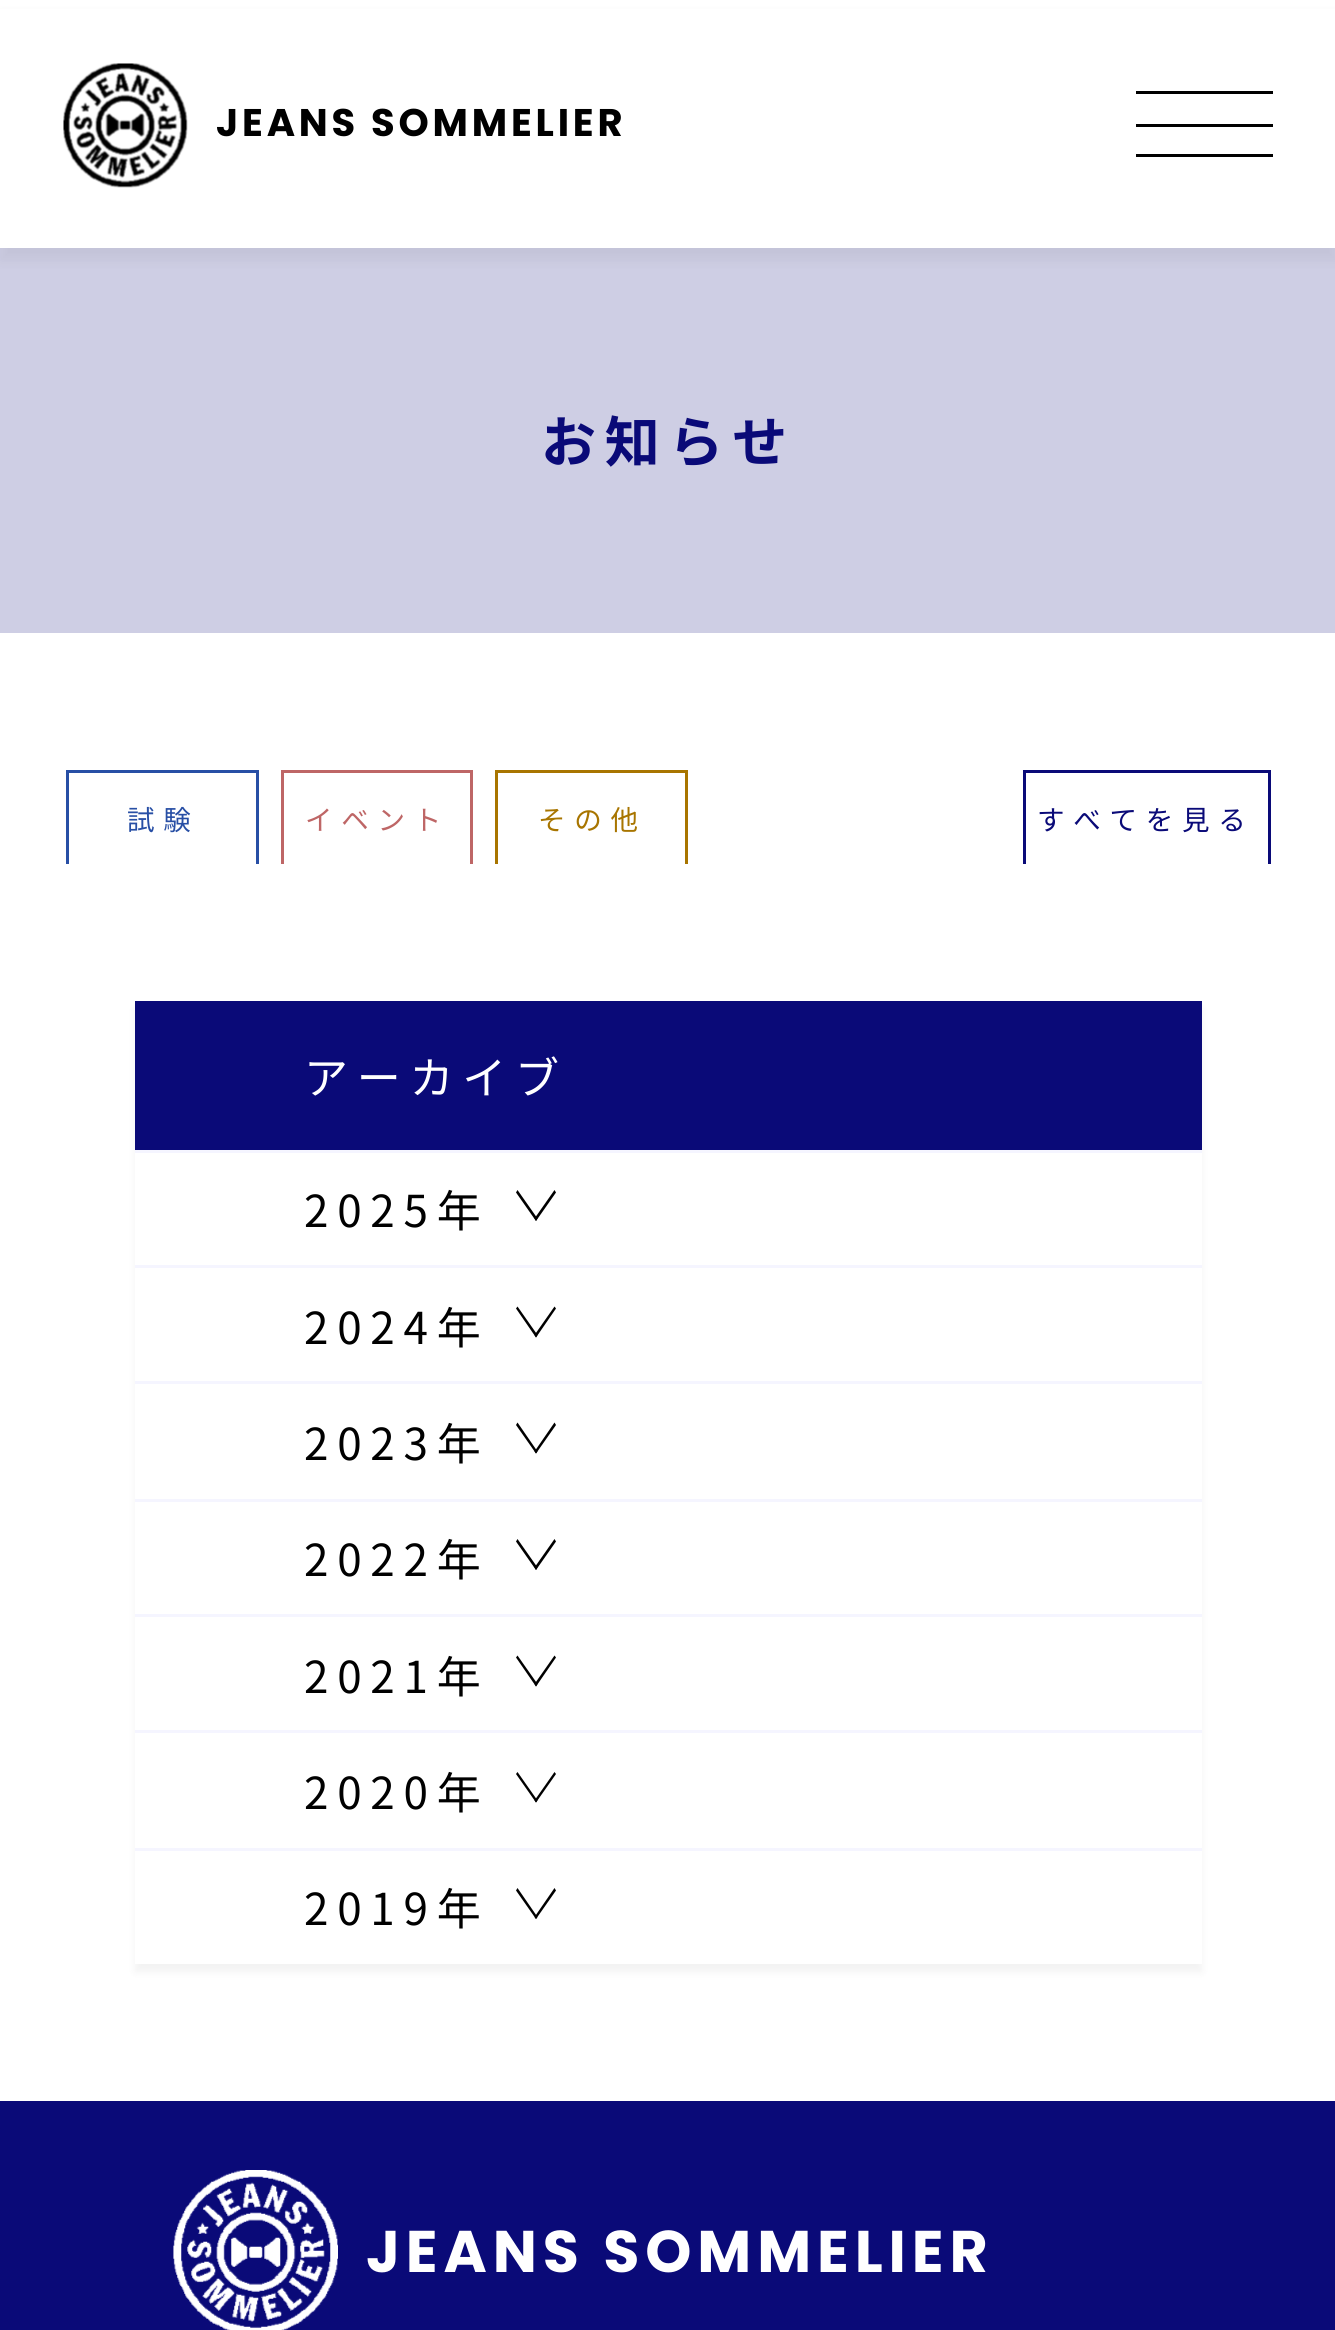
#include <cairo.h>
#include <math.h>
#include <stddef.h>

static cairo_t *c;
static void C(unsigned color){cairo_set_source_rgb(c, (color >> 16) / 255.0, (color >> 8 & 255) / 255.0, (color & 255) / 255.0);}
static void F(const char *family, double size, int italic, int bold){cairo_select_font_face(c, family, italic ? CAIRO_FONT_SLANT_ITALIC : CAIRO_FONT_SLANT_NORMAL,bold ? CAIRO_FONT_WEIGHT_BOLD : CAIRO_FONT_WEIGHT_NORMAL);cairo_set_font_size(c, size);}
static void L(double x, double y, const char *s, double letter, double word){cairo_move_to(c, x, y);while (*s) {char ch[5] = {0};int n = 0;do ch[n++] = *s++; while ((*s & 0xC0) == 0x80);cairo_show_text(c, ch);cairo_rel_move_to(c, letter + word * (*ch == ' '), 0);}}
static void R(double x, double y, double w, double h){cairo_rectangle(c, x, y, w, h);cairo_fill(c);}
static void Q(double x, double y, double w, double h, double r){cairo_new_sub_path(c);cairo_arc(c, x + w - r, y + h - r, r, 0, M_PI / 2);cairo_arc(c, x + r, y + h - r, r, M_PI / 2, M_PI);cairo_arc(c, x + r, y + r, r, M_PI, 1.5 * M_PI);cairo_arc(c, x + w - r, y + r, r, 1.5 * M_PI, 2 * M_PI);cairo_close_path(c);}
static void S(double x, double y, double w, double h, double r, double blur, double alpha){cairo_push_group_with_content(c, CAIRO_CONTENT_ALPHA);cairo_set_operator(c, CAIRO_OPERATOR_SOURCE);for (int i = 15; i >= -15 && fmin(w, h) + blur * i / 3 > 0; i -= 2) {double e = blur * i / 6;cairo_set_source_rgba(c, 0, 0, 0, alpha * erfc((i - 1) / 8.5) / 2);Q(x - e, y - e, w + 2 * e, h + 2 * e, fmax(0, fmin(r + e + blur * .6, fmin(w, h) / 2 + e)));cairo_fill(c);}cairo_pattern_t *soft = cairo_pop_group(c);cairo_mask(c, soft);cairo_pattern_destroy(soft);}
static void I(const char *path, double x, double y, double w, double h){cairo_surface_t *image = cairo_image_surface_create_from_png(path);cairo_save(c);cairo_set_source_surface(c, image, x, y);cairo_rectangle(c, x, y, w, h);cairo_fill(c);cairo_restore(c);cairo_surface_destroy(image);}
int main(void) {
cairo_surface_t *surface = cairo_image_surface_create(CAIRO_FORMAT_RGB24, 1335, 2330);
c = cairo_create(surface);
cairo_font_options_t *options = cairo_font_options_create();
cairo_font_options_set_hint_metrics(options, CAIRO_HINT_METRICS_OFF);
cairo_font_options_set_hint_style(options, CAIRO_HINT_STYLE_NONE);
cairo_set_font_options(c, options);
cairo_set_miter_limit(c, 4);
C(0xffffff);
cairo_paint(c);
C(0xcecee4);
R(0,248,1335,385);
C(0x000000);
S(0,14,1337,247,0,5.5,.05);
C(0xffffff);
R(0,9,1335,239);
I("1.png",63,63,125,125);
F("Poppins",38.5,0,1);
C(0x000000);
L(216,136,"JEANS SOMMELIER",3.8,0);
R(1136,91,137,3);
R(1136,124,137,3);
R(1136,154,137,3);
F("Noto Sans JP",55,0,1);
C(0x0a0a78);
L(541,462,"お知らせ",8.75,0);
C(0x284fa5);
R(66,770,193,3);
R(256,770,3,94);
R(66,770,3,94);
F("Noto Sans JP",27.5,0,0);
L(127,830,"試験",8.75,0);
C(0xbe6666);
R(281,770,192,3);
R(470,770,3,94);
R(281,770,3,94);
L(305,830,"イベント",8.75,0);
C(0xa87500);
R(495,770,193,3);
R(685,770,3,94);
R(495,770,3,94);
L(538,830,"その他",8.75,0);
C(0x0a0a78);
R(1023,770,248,3);
R(1268,770,3,94);
R(1023,770,3,94);
L(1037,830,"すべてを見る",8.75,0);
cairo_save(c);
cairo_set_fill_rule(c,CAIRO_FILL_RULE_EVEN_ODD);
cairo_new_path(c);
cairo_move_to(c,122,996);
cairo_line_to(c,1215,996);
cairo_line_to(c,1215,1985);
cairo_line_to(c,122,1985);
cairo_close_path(c);
cairo_move_to(c,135,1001);
cairo_line_to(c,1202,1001);
cairo_line_to(c,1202,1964);
cairo_line_to(c,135,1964);
cairo_close_path(c);
cairo_clip(c);
C(0x000000);
S(135,1009,1067,963,0,4,.05);
cairo_restore(c);
R(135,1001,1067,149);
F("Noto Sans JP",44,0,0);
C(0xffffff);
L(304,1094,"アーカイブ",8.75,0);
C(0xf5f5ff);
R(135,1150,1067,3);
C(0x000000);
L(304,1227,"2025年",8.75,0);
cairo_new_path(c);
cairo_move_to(c,556,1192.5);
cairo_line_to(c,536,1221);
cairo_line_to(c,534.5,1218.5);
cairo_line_to(c,554.5,1190);
cairo_close_path(c);
cairo_fill(c);
cairo_new_path(c);
cairo_move_to(c,537.5,1218.5);
cairo_line_to(c,536,1221);
cairo_line_to(c,516,1192.5);
cairo_line_to(c,517.5,1190);
cairo_close_path(c);
cairo_fill(c);
C(0xf5f5ff);
R(135,1265,1067,3);
C(0x000000);
L(304,1344,"2024年",8.75,0);
cairo_new_path(c);
cairo_move_to(c,556,1308.5);
cairo_line_to(c,536,1337.5);
cairo_line_to(c,534.5,1335);
cairo_line_to(c,554.5,1306.5);
cairo_close_path(c);
cairo_fill(c);
cairo_new_path(c);
cairo_move_to(c,537.5,1335);
cairo_line_to(c,536,1337.5);
cairo_line_to(c,516,1308.5);
cairo_line_to(c,517.5,1306.5);
cairo_close_path(c);
cairo_fill(c);
C(0xf5f5ff);
R(135,1381,1067,3);
C(0x000000);
L(304,1460,"2023年",8.75,0);
cairo_new_path(c);
cairo_move_to(c,556,1425);
cairo_line_to(c,536,1453.5);
cairo_line_to(c,534.5,1451.5);
cairo_line_to(c,554.5,1422.5);
cairo_close_path(c);
cairo_fill(c);
cairo_new_path(c);
cairo_move_to(c,537.5,1451.5);
cairo_line_to(c,536,1453.5);
cairo_line_to(c,516,1425);
cairo_line_to(c,517.5,1422.5);
cairo_close_path(c);
cairo_fill(c);
C(0xf5f5ff);
R(135,1499,1067,3);
C(0x000000);
L(304,1576,"2022年",8.75,0);
cairo_new_path(c);
cairo_move_to(c,556,1541.5);
cairo_line_to(c,536,1570);
cairo_line_to(c,534.5,1567.5);
cairo_line_to(c,554.5,1539);
cairo_close_path(c);
cairo_fill(c);
cairo_new_path(c);
cairo_move_to(c,537.5,1567.5);
cairo_line_to(c,536,1570);
cairo_line_to(c,516,1541.5);
cairo_line_to(c,517.5,1539);
cairo_close_path(c);
cairo_fill(c);
C(0xf5f5ff);
R(135,1614,1067,3);
C(0x000000);
L(304,1693,"2021年",8.75,0);
cairo_new_path(c);
cairo_move_to(c,556,1657.5);
cairo_line_to(c,536,1686.5);
cairo_line_to(c,534.5,1684);
cairo_line_to(c,554.5,1655.5);
cairo_close_path(c);
cairo_fill(c);
cairo_new_path(c);
cairo_move_to(c,537.5,1684);
cairo_line_to(c,536,1686.5);
cairo_line_to(c,516,1657.5);
cairo_line_to(c,517.5,1655.5);
cairo_close_path(c);
cairo_fill(c);
C(0xf5f5ff);
R(135,1730,1067,3);
C(0x000000);
L(304,1809,"2020年",8.75,0);
cairo_new_path(c);
cairo_move_to(c,556,1774);
cairo_line_to(c,536,1802.5);
cairo_line_to(c,534.5,1800.5);
cairo_line_to(c,554.5,1772);
cairo_close_path(c);
cairo_fill(c);
cairo_new_path(c);
cairo_move_to(c,537.5,1800.5);
cairo_line_to(c,536,1802.5);
cairo_line_to(c,516,1774);
cairo_line_to(c,517.5,1772);
cairo_close_path(c);
cairo_fill(c);
C(0xf5f5ff);
R(135,1848,1067,3);
C(0x000000);
L(304,1925,"2019年",8.75,0);
cairo_new_path(c);
cairo_move_to(c,556,1890.5);
cairo_line_to(c,536,1919);
cairo_line_to(c,534.5,1917);
cairo_line_to(c,554.5,1888);
cairo_close_path(c);
cairo_fill(c);
cairo_new_path(c);
cairo_move_to(c,537.5,1917);
cairo_line_to(c,536,1919);
cairo_line_to(c,516,1890.5);
cairo_line_to(c,517.5,1888);
cairo_close_path(c);
cairo_fill(c);
C(0x0a0a78);
R(0,2101,1335,229);
I("2.png",173,2170,165,160);
F("Poppins",58.75,0,1);
C(0xffffff);
L(366,2272,"JEANS SOMMELIER",5.9,0);
cairo_surface_write_to_png(surface, "o.png");
cairo_font_options_destroy(options);
cairo_destroy(c);
cairo_surface_destroy(surface);
return 0;
}
